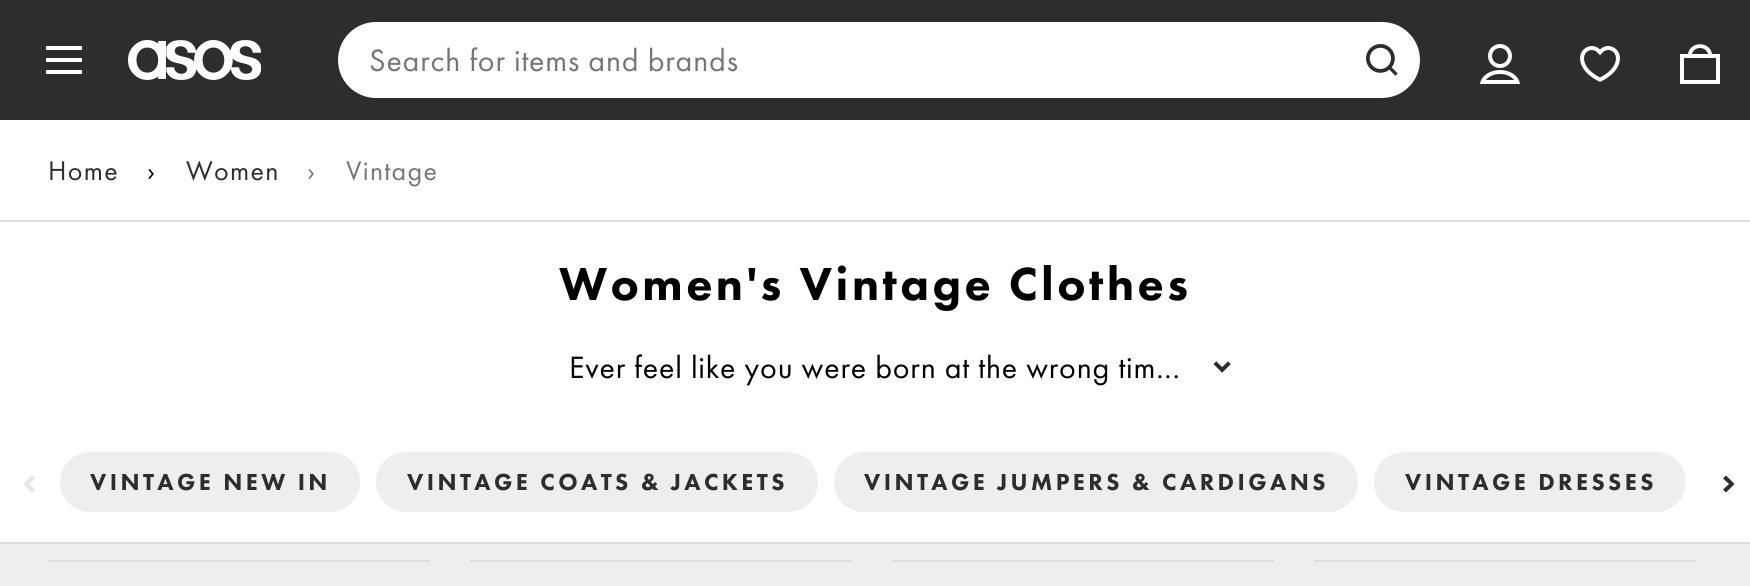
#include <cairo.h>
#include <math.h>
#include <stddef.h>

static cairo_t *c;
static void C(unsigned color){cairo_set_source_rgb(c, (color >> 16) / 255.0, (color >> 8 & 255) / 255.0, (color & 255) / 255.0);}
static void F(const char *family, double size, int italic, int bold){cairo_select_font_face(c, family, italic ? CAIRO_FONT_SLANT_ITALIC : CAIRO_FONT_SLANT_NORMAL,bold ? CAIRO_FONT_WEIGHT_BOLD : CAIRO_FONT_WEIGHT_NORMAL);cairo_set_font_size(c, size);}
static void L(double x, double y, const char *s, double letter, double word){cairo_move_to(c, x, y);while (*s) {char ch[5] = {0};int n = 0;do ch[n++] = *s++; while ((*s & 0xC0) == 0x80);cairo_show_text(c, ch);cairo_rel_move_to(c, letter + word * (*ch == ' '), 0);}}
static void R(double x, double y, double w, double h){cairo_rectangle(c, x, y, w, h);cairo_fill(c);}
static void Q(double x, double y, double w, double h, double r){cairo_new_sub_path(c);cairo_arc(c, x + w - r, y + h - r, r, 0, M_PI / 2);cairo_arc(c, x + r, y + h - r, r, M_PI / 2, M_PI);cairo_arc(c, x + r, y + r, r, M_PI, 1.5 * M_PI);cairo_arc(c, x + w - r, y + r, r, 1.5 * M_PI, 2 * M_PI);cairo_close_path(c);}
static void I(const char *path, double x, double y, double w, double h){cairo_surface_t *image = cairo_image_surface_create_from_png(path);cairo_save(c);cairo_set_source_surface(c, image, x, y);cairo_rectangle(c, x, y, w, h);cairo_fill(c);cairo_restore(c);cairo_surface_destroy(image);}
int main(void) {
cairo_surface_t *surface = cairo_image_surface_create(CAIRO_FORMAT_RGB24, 1750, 586);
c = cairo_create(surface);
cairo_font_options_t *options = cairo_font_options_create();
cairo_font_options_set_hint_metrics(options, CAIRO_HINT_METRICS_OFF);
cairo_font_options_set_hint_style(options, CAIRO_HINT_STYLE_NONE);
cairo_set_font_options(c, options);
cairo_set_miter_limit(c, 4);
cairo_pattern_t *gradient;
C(0xffffff);
cairo_paint(c);
C(0x2d2d2d);
R(0,0,1750,120);
C(0xffffff);
cairo_new_path(c);
cairo_move_to(c,46,46);
cairo_line_to(c,82,46);
cairo_line_to(c,82,50);
cairo_line_to(c,46,50);
cairo_close_path(c);
cairo_move_to(c,46,58);
cairo_line_to(c,82,58);
cairo_line_to(c,82,62);
cairo_line_to(c,46,62);
cairo_close_path(c);
cairo_move_to(c,46,70);
cairo_line_to(c,82,70);
cairo_line_to(c,82,74);
cairo_line_to(c,46,74);
cairo_close_path(c);
cairo_fill(c);
I("1.png",128,40,133,40);
Q(338,22,1082,76,38);
cairo_fill(c);
F("Futura PT",32,0,0);
C(0x767676);
L(369,71,"Search for items and brands",.8,0);
I("2.png",1366,44,32,32);
I("3.png",1480,44,40,40);
I("4.png",1580,46,40,36);
C(0xffffff);
cairo_new_path(c);
cairo_move_to(c,1716,80);
cairo_line_to(c,1716,58);
cairo_line_to(c,1684,58);
cairo_line_to(c,1684,80);
cairo_close_path(c);
cairo_move_to(c,1688,54);
cairo_curve_to(c,1690,41,1710,41,1712,54);
cairo_line_to(c,1720,54);
cairo_line_to(c,1720,84);
cairo_line_to(c,1680,84);
cairo_line_to(c,1680,54);
cairo_close_path(c);
cairo_move_to(c,1708,54);
cairo_curve_to(c,1706,46,1694,46,1692,54);
cairo_close_path(c);
cairo_fill(c);
F("Futura PT",28,0,0);
C(0x2d2d2d);
L(48,180,"Home",1.25,0);
C(0x000000);
L(147,180,"›",1.25,0);
C(0x2d2d2d);
L(186,180,"Women",1.25,0);
C(0x767676);
L(307,180,"›",1.25,0);
L(346,180,"Vintage",1.25,0);
C(0xdddddd);
R(0,220,1750,2);
R(0,542,1750,2);
F("Futura PT Black",48,0,0);
C(0x000000);
L(559,300,"Women's Vintage Clothes",3.4,0);
F("Futura PT",32,0,0);
L(569,378,"Ever feel like you were born at the wrong tim...",.8,0);
I("5.png",1213,361,18,12);
C(0xe6e6e6);
cairo_set_fill_rule(c,CAIRO_FILL_RULE_EVEN_ODD);
cairo_new_path(c);
cairo_move_to(c,29,484);
cairo_line_to(c,35,478.5);
cairo_line_to(c,32,475.5);
cairo_line_to(c,23.5,484);
cairo_line_to(c,32,492.5);
cairo_line_to(c,35,489.5);
cairo_close_path(c);
cairo_fill(c);
C(0xeeeeee);
Q(60,452,300,60,30);
cairo_fill(c);
F("Futura PT Black",24,0,0);
C(0x2d2d2d);
L(90,490,"VINTAGE NEW IN",3.4,0);
C(0xeeeeee);
Q(376,452,442,60,30);
cairo_fill(c);
C(0x2d2d2d);
L(407,490,"VINTAGE COATS & JACKETS",3.4,0);
C(0xeeeeee);
Q(834,452,524,60,30);
cairo_fill(c);
C(0x2d2d2d);
L(864,490,"VINTAGE JUMPERS & CARDIGANS",3.4,0);
C(0xeeeeee);
Q(1374,452,312,60,30);
cairo_fill(c);
C(0x2d2d2d);
L(1405,490,"VINTAGE DRESSES",3.4,0);
gradient = cairo_pattern_create_linear(1670,482,1750,482);
cairo_pattern_add_color_stop_rgba(gradient,0,1,1,1,0);
cairo_pattern_add_color_stop_rgba(gradient,1,1,1,1,1);
cairo_set_source(c,gradient);
cairo_pattern_destroy(gradient);
R(1682,469,4,26);
C(0x2d2d2d);
cairo_new_path(c);
cairo_move_to(c,1729,484);
cairo_line_to(c,1723,489.5);
cairo_line_to(c,1726,492.5);
cairo_line_to(c,1734.5,484);
cairo_line_to(c,1726,475.5);
cairo_line_to(c,1723,478.5);
cairo_close_path(c);
cairo_fill(c);
C(0xeeeeee);
R(0,544,1750,42);
C(0xdddddd);
R(48,560,382,2);
R(470,560,382,2);
R(892,560,382,2);
R(1314,560,382,2);
cairo_surface_write_to_png(surface, "o.png");
cairo_font_options_destroy(options);
cairo_destroy(c);
cairo_surface_destroy(surface);
return 0;
}
